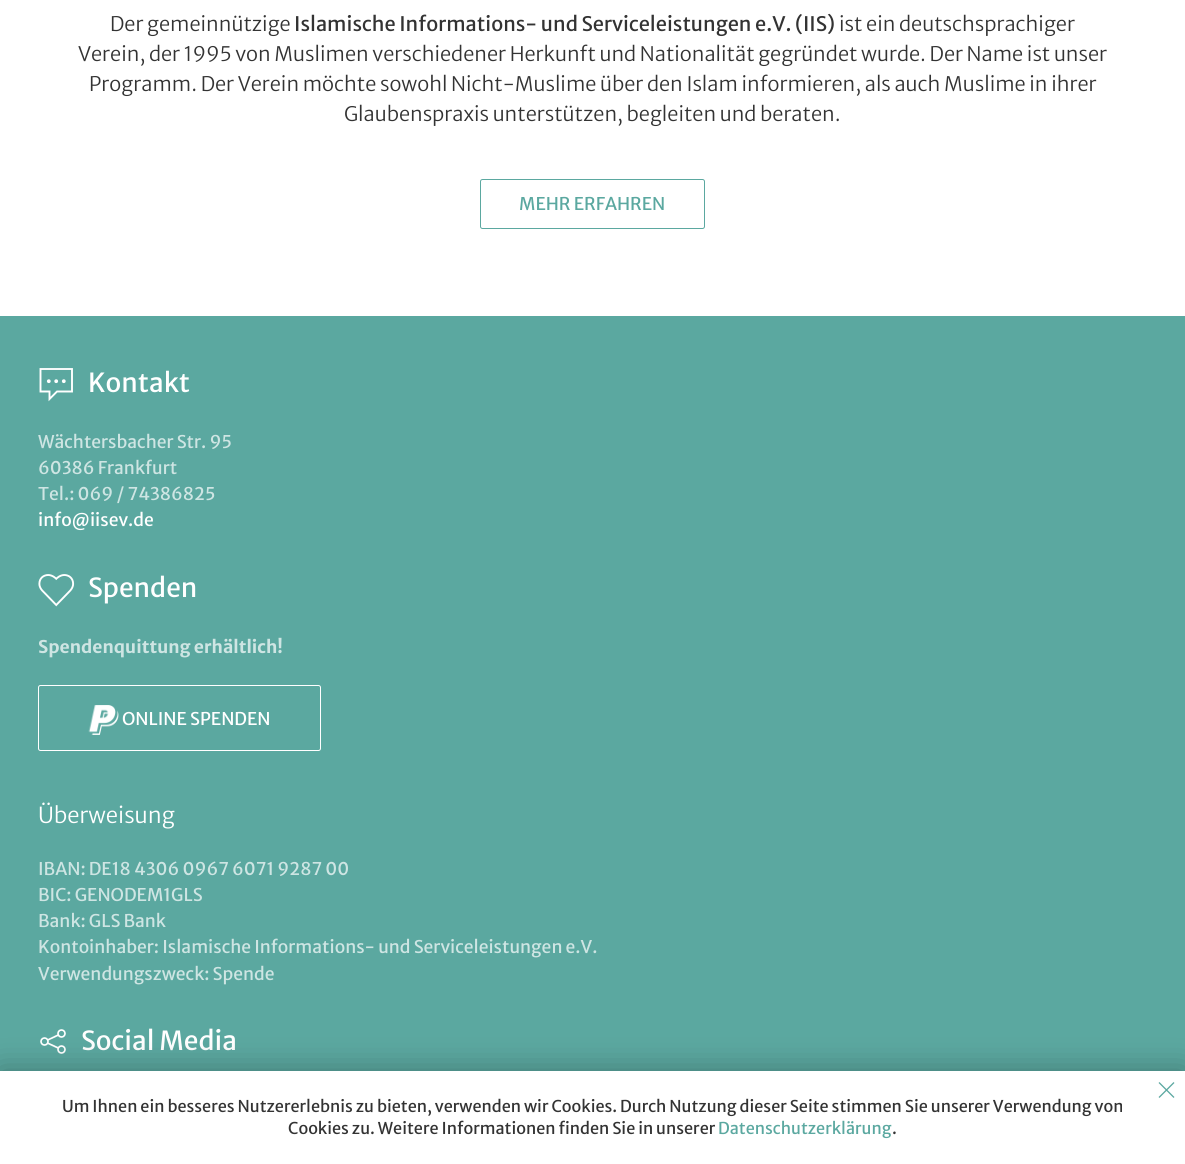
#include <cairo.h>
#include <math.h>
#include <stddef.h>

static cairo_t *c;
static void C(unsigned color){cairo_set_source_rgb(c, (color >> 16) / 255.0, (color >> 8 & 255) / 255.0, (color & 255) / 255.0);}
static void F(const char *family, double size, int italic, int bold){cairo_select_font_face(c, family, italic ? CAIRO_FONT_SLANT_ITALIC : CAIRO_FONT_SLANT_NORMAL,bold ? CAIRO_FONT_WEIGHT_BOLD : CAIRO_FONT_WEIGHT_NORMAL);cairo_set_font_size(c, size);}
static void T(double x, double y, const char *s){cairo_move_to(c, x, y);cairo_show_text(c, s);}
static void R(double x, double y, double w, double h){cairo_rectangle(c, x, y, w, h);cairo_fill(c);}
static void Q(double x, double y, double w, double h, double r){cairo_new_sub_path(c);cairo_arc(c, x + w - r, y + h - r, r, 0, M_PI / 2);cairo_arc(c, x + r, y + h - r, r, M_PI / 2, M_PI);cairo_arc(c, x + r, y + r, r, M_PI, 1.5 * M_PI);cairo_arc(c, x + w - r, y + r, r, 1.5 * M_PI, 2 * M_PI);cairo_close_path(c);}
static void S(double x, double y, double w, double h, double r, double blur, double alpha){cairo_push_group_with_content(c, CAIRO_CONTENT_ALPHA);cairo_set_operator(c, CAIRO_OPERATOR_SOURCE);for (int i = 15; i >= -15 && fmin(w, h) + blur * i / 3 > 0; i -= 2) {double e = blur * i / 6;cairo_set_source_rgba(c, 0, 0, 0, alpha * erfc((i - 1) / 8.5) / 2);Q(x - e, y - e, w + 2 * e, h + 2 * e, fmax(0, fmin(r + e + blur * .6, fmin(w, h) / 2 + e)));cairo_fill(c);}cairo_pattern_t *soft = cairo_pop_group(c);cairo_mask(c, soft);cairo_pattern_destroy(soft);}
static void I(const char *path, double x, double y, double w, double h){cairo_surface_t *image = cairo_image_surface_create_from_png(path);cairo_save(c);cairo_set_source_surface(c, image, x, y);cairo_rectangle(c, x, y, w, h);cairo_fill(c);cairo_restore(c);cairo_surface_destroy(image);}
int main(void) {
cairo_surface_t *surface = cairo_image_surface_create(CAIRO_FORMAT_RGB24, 1185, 1164);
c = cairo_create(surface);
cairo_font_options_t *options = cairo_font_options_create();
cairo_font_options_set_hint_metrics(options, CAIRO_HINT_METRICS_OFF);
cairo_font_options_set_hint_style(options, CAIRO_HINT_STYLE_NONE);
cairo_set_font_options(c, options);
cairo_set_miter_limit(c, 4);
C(0xffffff);
cairo_paint(c);
F("Merriweather Sans Light",20,0,0);
C(0x333333);
T(110,31,"Der gemeinnützige");
F("Merriweather Sans",20,0,0);
T(294,31,"Islamische Informations- und Serviceleistungen e.V. (IIS)");
F("Merriweather Sans Light",20,0,0);
T(839,31,"ist ein deutschsprachiger");
T(78,61,"Verein, der 1995 von Muslimen verschiedener Herkunft und Nationalität gegründet wurde. Der Name ist unser");
T(89,91,"Programm. Der Verein möchte sowohl Nicht-Muslime über den Islam informieren, als auch Muslime in ihrer");
T(344,121,"Glaubenspraxis unterstützen, begleiten und beraten.");
Q(480.5,179.5,224,49,2);
C(0x5ba8a0);
cairo_set_line_width(c,1);
cairo_stroke(c);
F("Merriweather Sans",17.5,0,0);
T(519,210,"MEHR ERFAHREN");
R(0,316,1185,755);
cairo_new_path(c);
cairo_move_to(c,40.5,369);
cairo_line_to(c,72,369);
cairo_line_to(c,72,391.5);
cairo_line_to(c,57,391.5);
cairo_line_to(c,49.5,399);
cairo_line_to(c,49.5,391.5);
cairo_line_to(c,40.5,391.5);
cairo_close_path(c);
C(0xffffff);
cairo_set_line_width(c,1.9);
cairo_stroke(c);
cairo_arc(c,48.8,381.2,1.9,0,2 * M_PI);
cairo_fill(c);
cairo_arc(c,56.2,381.2,1.9,0,2 * M_PI);
cairo_fill(c);
cairo_arc(c,63.8,381.2,1.9,0,2 * M_PI);
cairo_fill(c);
F("Merriweather Sans",26.25,0,0);
T(88,392,"Kontakt");
F("Merriweather Sans",17.5,0,0);
C(0xcee5e3);
T(38,448,"Wächtersbacher Str. 95");
T(38,474,"60386 Frankfurt");
T(38,500,"Tel.: 069 / 74386825");
C(0xffffff);
T(38,526,"info@iisev.de");
I("1.png",38,574,37,33);
F("Merriweather Sans",26.25,0,0);
T(88,597,"Spenden");
F("Merriweather Sans",17.5,0,1);
C(0xcee5e3);
T(38,653,"Spendenquittung erhältlich!");
Q(38.5,685.5,282,65,2);
C(0xffffff);
cairo_set_line_width(c,1);
cairo_stroke(c);
I("2.png",88,705,31,30);
F("Merriweather Sans",17.5,0,0);
T(122,725,"ONLINE SPENDEN");
F("Merriweather Sans Light",22,0,0);
T(38,823,"Überweisung");
F("Merriweather Sans",17.5,0,0);
C(0xcee5e3);
T(38,875,"IBAN: DE18 4306 0967 6071 9287 00");
T(38,901,"BIC: GENODEM1GLS");
T(38,927,"Bank: GLS Bank");
T(38,953,"Kontoinhaber: Islamische Informations- und Serviceleistungen e.V.");
T(38,980,"Verwendungszweck: Spende");
I("3.png",40,1029,26,25);
F("Merriweather Sans",26.25,0,0);
C(0xffffff);
T(81,1050,"Social Media");
C(0x000000);
S(0,1071,1185,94,0,15.5,.3);
C(0xffffff);
R(0,1071,1185,93);
cairo_new_path(c);
cairo_move_to(c,1174,1097.5);
cairo_line_to(c,1159,1082.5);
cairo_move_to(c,1174,1082.5);
cairo_line_to(c,1159,1097.5);
C(0x5ba8a0);
cairo_set_line_width(c,1.3);
cairo_stroke(c);
F("Merriweather Sans",16.25,0,0);
C(0x333333);
T(62,1112,"Um Ihnen ein besseres Nutzererlebnis zu bieten, verwenden wir Cookies. Durch Nutzung dieser Seite stimmen Sie unserer Verwendung von");
T(288,1134,"Cookies zu. Weitere Informationen finden Sie in unserer");
C(0x5ba8a0);
T(718,1134,"Datenschutzerklärung");
C(0x333333);
T(892,1134,".");
cairo_surface_write_to_png(surface, "o.png");
cairo_font_options_destroy(options);
cairo_destroy(c);
cairo_surface_destroy(surface);
return 0;
}
